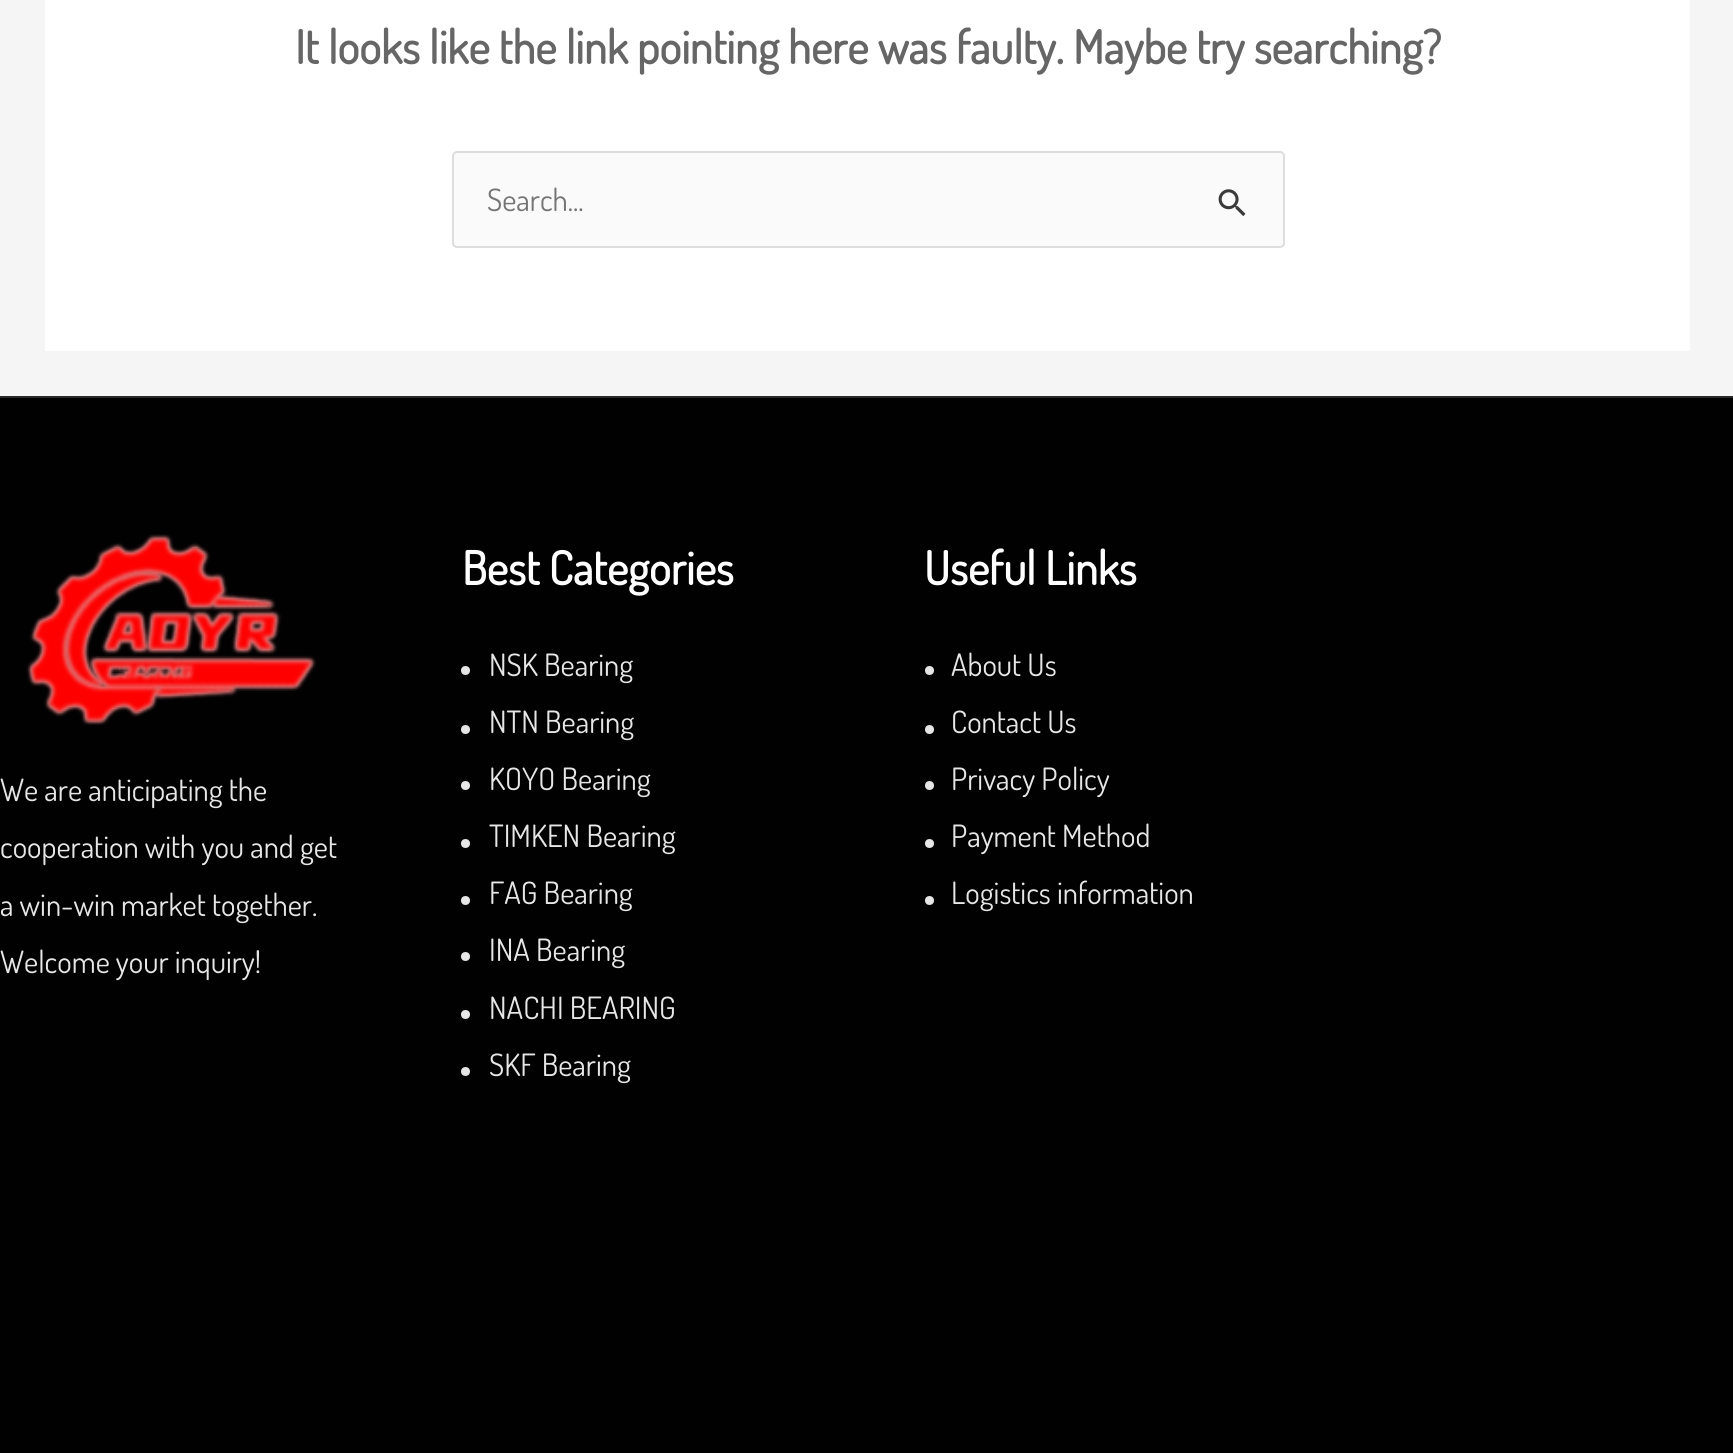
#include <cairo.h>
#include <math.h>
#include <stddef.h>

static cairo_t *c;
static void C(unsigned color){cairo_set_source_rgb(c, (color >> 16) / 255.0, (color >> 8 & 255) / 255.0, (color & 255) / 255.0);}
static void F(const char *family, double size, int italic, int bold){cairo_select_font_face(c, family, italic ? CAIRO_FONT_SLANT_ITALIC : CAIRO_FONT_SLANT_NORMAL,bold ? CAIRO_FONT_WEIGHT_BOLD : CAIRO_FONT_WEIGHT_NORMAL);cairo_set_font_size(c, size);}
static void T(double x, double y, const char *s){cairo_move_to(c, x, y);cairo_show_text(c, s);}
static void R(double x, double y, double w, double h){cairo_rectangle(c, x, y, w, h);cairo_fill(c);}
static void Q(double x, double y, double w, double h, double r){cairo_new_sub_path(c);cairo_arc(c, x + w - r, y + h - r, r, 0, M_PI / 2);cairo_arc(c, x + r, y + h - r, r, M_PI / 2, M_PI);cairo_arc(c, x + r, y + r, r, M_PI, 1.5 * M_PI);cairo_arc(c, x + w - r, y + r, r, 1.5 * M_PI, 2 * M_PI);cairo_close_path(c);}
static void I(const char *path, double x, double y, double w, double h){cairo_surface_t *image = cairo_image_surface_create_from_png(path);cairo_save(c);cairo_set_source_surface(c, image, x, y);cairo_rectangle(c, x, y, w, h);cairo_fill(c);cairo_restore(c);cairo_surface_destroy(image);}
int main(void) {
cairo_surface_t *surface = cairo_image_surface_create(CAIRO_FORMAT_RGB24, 1733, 1453);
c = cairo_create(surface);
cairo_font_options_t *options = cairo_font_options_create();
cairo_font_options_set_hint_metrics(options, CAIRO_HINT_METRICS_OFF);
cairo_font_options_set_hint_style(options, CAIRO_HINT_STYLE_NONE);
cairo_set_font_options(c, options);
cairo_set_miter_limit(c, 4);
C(0xf5f5f5);
cairo_paint(c);
C(0xffffff);
R(45,0,1645,351);
F("Dosis",46.2,0,1);
C(0x666666);
T(295,64,"It looks like the link pointing here was faulty. Maybe try searching?");
C(0xfafafa);
Q(453,152,831,95,4);
cairo_fill_preserve(c);
C(0xdddddd);
cairo_stroke(c);
F("Dosis",30.75,0,0);
C(0x757575);
T(487,211,"Search...");
I("1.png",1218,189,28,28);
C(0x010101);
R(0,398,1733,1055);
C(0x292929);
R(0,396,1733,2);
I("2.png",26,534,291,191);
C(0xe6e6e6);
T(0,801,"We are anticipating the");
T(0,858,"cooperation with you and get");
T(0,916,"a win-win market together.");
T(0,973,"Welcome your inquiry!");
F("Dosis",46.2,0,1);
C(0xffffff);
T(462,585,"Best Categories");
C(0xe6e6e6);
cairo_new_path(c);
cairo_arc(c,465.5,670.5,4.5,0,2 * M_PI);
cairo_fill(c);
F("Dosis",30.75,0,0);
T(489,676,"NSK Bearing");
cairo_new_path(c);
cairo_arc(c,465.5,729.5,4.5,0,2 * M_PI);
cairo_fill(c);
T(489,733,"NTN Bearing");
cairo_new_path(c);
cairo_arc(c,465.5,785.5,4.5,0,2 * M_PI);
cairo_fill(c);
T(489,790,"KOYO Bearing");
cairo_new_path(c);
cairo_arc(c,465.5,843.5,4.5,0,2 * M_PI);
cairo_fill(c);
T(489,847,"TIMKEN Bearing");
cairo_new_path(c);
cairo_arc(c,465.5,900.5,4.5,0,2 * M_PI);
cairo_fill(c);
T(489,904,"FAG Bearing");
cairo_new_path(c);
cairo_arc(c,465.5,956.5,4.5,0,2 * M_PI);
cairo_fill(c);
T(489,961,"INA Bearing");
cairo_new_path(c);
cairo_arc(c,465.5,1014.5,4.5,0,2 * M_PI);
cairo_fill(c);
T(489,1019,"NACHI BEARING");
cairo_new_path(c);
cairo_arc(c,465.5,1071.5,4.5,0,2 * M_PI);
cairo_fill(c);
T(489,1076,"SKF Bearing");
F("Dosis",46.2,0,1);
C(0xffffff);
T(924,585,"Useful Links");
C(0xe6e6e6);
cairo_new_path(c);
cairo_arc(c,929.5,670.5,4.5,0,2 * M_PI);
cairo_fill(c);
F("Dosis",30.75,0,0);
T(951,676,"About Us");
cairo_new_path(c);
cairo_arc(c,929.5,729.5,4.5,0,2 * M_PI);
cairo_fill(c);
T(951,733,"Contact Us");
cairo_new_path(c);
cairo_arc(c,929.5,785.5,4.5,0,2 * M_PI);
cairo_fill(c);
T(951,790,"Privacy Policy");
cairo_new_path(c);
cairo_arc(c,929.5,843.5,4.5,0,2 * M_PI);
cairo_fill(c);
T(951,847,"Payment Method");
cairo_new_path(c);
cairo_arc(c,929.5,900.5,4.5,0,2 * M_PI);
cairo_fill(c);
T(951,904,"Logistics information");
cairo_surface_write_to_png(surface, "o.png");
cairo_font_options_destroy(options);
cairo_destroy(c);
cairo_surface_destroy(surface);
return 0;
}
